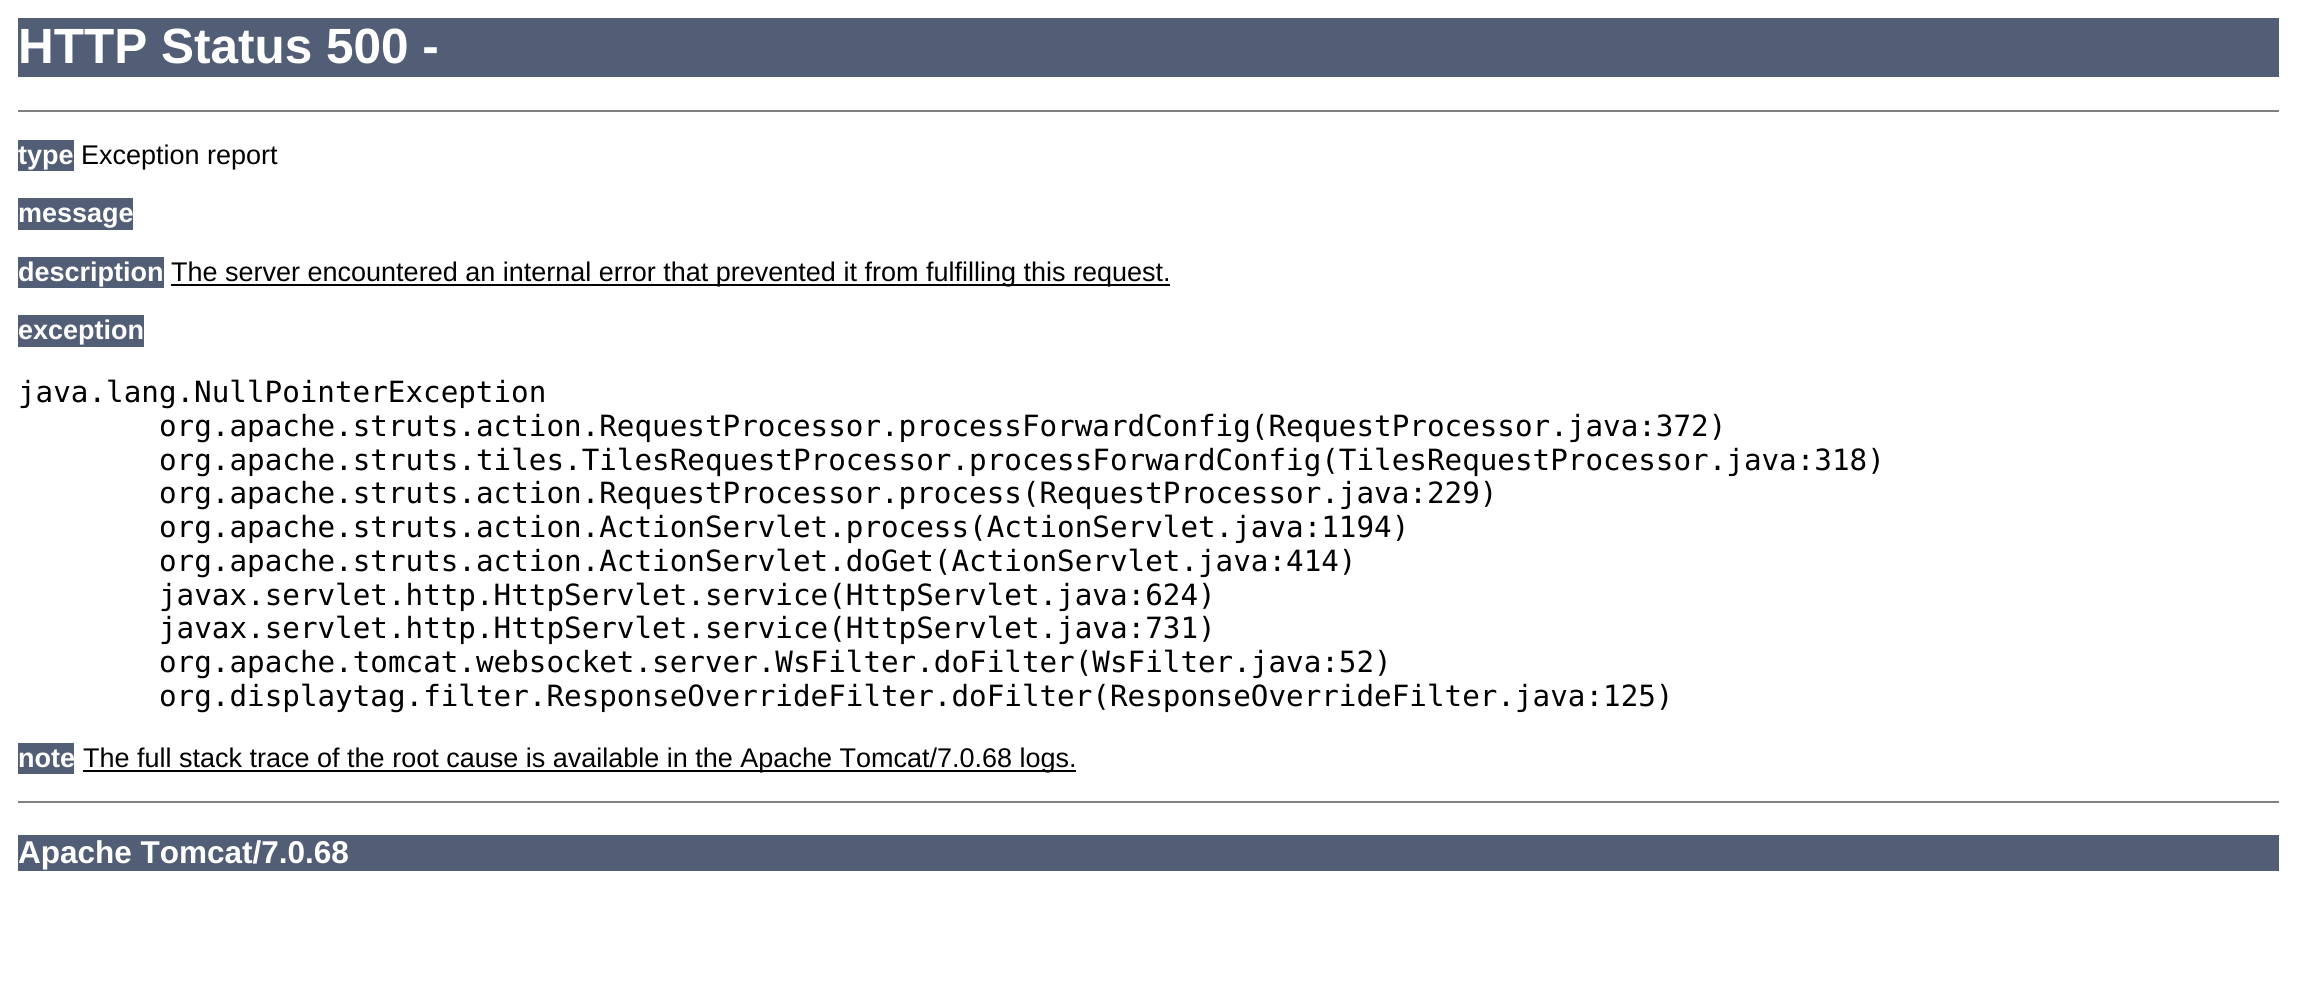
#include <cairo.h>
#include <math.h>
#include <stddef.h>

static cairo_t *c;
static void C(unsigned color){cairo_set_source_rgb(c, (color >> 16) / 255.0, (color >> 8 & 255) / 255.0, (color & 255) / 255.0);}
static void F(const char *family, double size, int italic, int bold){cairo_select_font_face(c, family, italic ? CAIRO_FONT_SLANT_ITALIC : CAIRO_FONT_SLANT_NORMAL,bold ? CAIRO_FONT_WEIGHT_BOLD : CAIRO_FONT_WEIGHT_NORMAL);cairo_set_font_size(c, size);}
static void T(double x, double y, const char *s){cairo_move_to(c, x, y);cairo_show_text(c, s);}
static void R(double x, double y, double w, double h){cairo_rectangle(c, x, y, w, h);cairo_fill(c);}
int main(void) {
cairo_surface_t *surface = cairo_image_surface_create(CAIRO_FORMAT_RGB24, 2297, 999);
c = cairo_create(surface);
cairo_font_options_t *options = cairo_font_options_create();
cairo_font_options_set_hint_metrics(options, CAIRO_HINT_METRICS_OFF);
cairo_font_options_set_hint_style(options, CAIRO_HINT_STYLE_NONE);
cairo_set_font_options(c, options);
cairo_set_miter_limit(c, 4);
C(0xffffff);
cairo_paint(c);
C(0x525d76);
R(18,18,2261,59);
F("Liberation Sans",49.5,0,1);
C(0xffffff);
T(18,63,"HTTP Status 500 -");
C(0x808080);
R(18,110,2261,2);
C(0x525d76);
R(18,140,56,31);
F("Liberation Sans",27,0,1);
C(0xffffff);
T(18,164,"type");
F("Liberation Sans",27,0,0);
C(0x000000);
T(81,164,"Exception report");
C(0x525d76);
R(18,198,115,32);
F("Liberation Sans",27,0,1);
C(0xffffff);
T(18,222,"message");
C(0x525d76);
R(18,257,146,31);
C(0xffffff);
T(18,281,"description");
C(0x000000);
R(171,284,999,2);
F("Liberation Sans",27,0,0);
T(171,281,"The server encountered an internal error that prevented it from fulfilling this request.");
C(0x525d76);
R(18,315,126,32);
F("Liberation Sans",27,0,1);
C(0xffffff);
T(18,339,"exception");
F("DejaVu Sans Mono",29.25,0,0);
C(0x000000);
T(18,402,"java.lang.NullPointerException");
T(159,436,"org.apache.struts.action.RequestProcessor.processForwardConfig(RequestProcessor.java:372)");
T(159,470,"org.apache.struts.tiles.TilesRequestProcessor.processForwardConfig(TilesRequestProcessor.java:318)");
T(159,503,"org.apache.struts.action.RequestProcessor.process(RequestProcessor.java:229)");
T(159,537,"org.apache.struts.action.ActionServlet.process(ActionServlet.java:1194)");
T(159,571,"org.apache.struts.action.ActionServlet.doGet(ActionServlet.java:414)");
T(159,605,"javax.servlet.http.HttpServlet.service(HttpServlet.java:624)");
T(159,638,"javax.servlet.http.HttpServlet.service(HttpServlet.java:731)");
T(159,672,"org.apache.tomcat.websocket.server.WsFilter.doFilter(WsFilter.java:52)");
T(159,706,"org.displaytag.filter.ResponseOverrideFilter.doFilter(ResponseOverrideFilter.java:125)");
C(0x525d76);
R(18,743,56,31);
F("Liberation Sans",27,0,1);
C(0xffffff);
T(18,767,"note");
C(0x000000);
R(83,770,993,2);
F("Liberation Sans",27,0,0);
T(83,767,"The full stack trace of the root cause is available in the Apache Tomcat/7.0.68 logs.");
C(0x808080);
R(18,801,2261,2);
C(0x525d76);
R(18,835,2261,36);
F("Liberation Sans",31.5,0,1);
C(0xffffff);
T(18,863,"Apache Tomcat/7.0.68");
cairo_surface_write_to_png(surface, "o.png");
cairo_font_options_destroy(options);
cairo_destroy(c);
cairo_surface_destroy(surface);
return 0;
}
